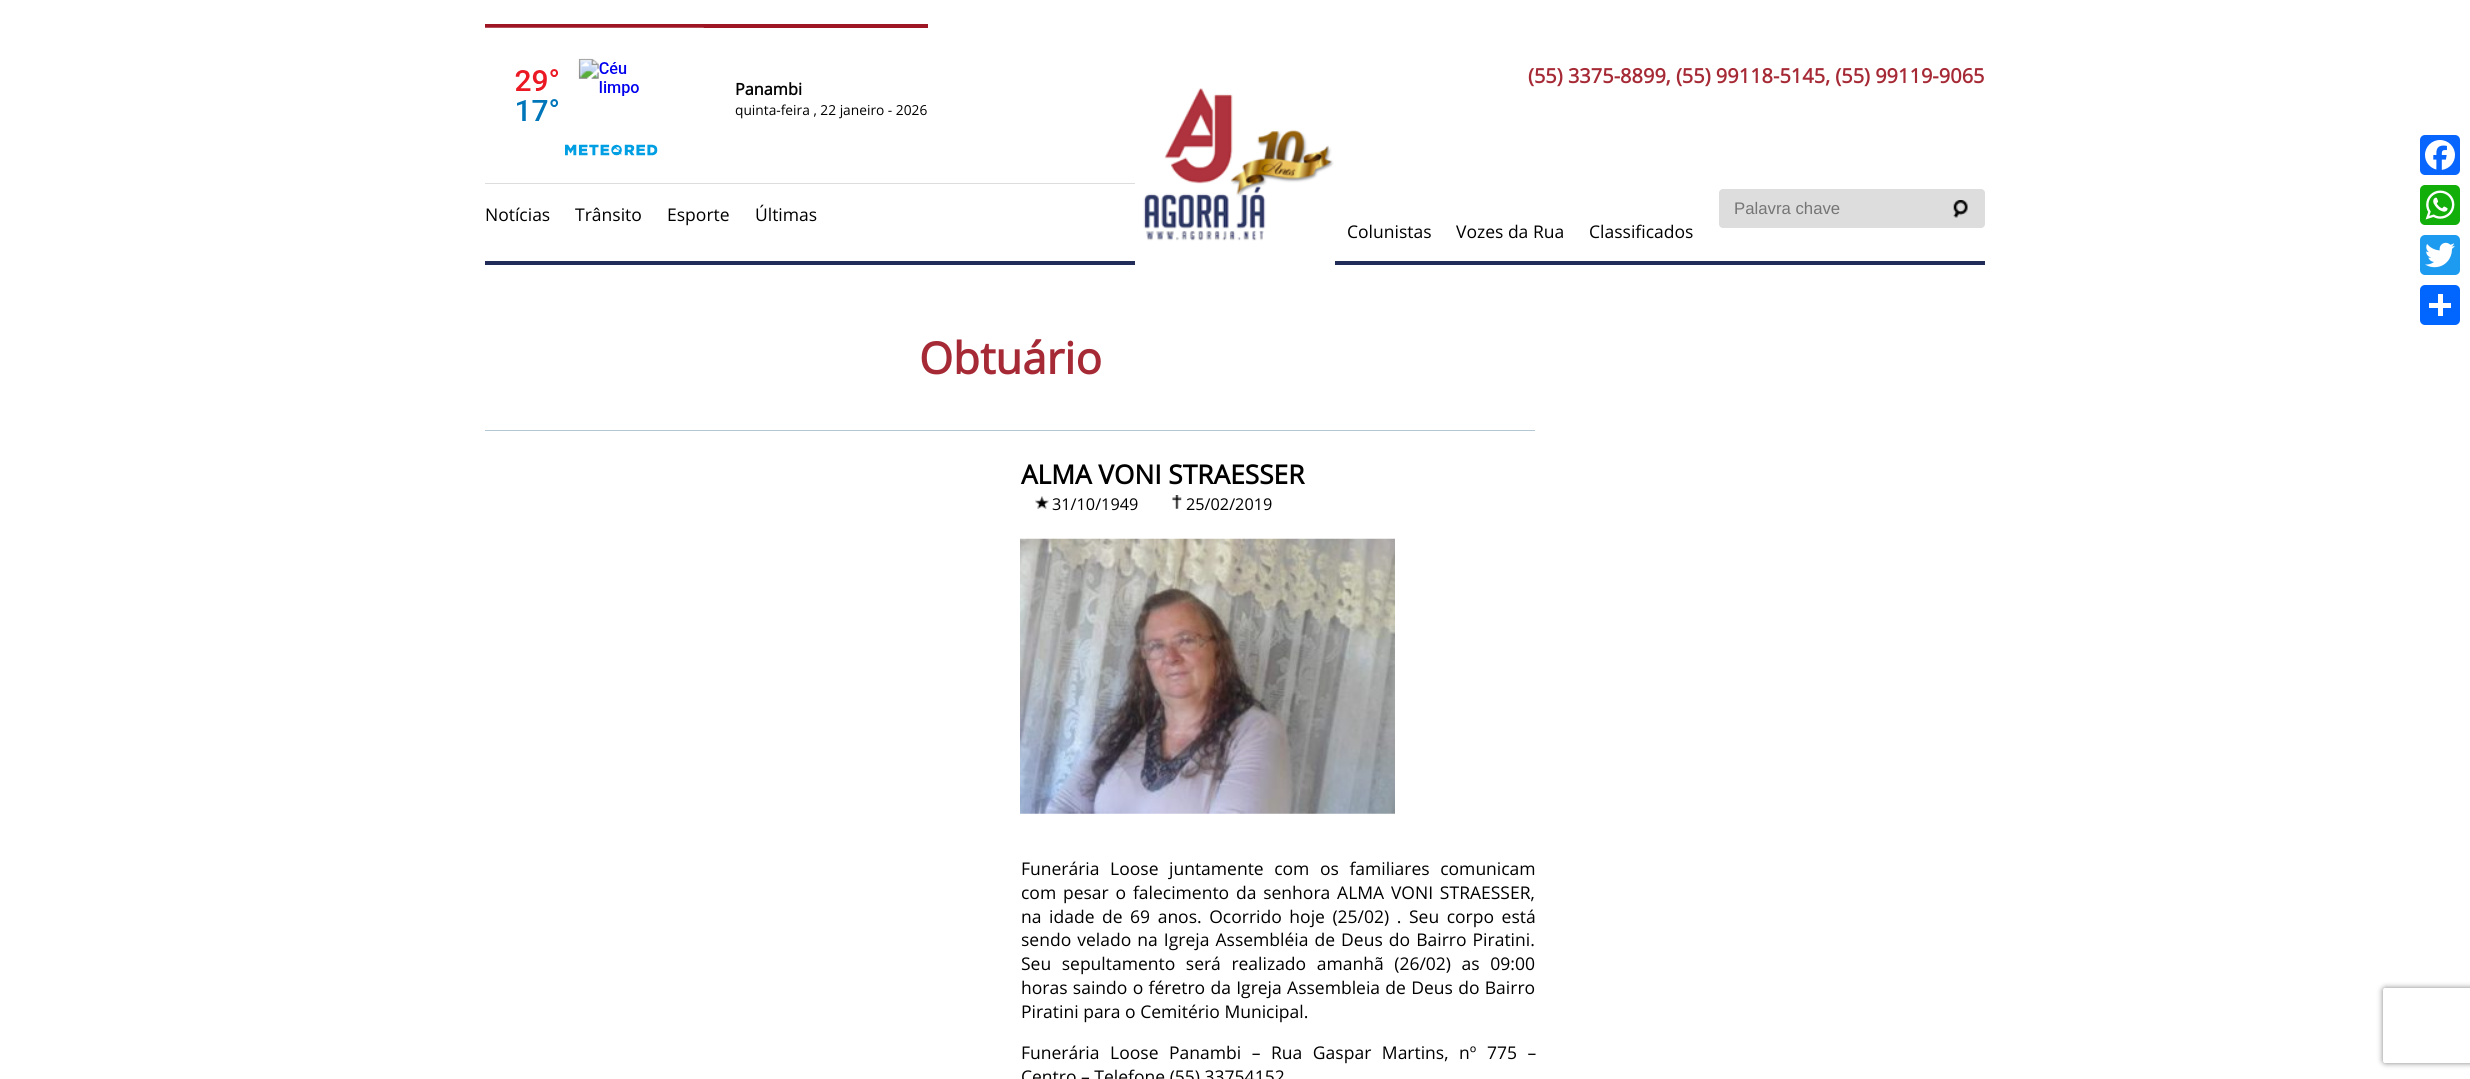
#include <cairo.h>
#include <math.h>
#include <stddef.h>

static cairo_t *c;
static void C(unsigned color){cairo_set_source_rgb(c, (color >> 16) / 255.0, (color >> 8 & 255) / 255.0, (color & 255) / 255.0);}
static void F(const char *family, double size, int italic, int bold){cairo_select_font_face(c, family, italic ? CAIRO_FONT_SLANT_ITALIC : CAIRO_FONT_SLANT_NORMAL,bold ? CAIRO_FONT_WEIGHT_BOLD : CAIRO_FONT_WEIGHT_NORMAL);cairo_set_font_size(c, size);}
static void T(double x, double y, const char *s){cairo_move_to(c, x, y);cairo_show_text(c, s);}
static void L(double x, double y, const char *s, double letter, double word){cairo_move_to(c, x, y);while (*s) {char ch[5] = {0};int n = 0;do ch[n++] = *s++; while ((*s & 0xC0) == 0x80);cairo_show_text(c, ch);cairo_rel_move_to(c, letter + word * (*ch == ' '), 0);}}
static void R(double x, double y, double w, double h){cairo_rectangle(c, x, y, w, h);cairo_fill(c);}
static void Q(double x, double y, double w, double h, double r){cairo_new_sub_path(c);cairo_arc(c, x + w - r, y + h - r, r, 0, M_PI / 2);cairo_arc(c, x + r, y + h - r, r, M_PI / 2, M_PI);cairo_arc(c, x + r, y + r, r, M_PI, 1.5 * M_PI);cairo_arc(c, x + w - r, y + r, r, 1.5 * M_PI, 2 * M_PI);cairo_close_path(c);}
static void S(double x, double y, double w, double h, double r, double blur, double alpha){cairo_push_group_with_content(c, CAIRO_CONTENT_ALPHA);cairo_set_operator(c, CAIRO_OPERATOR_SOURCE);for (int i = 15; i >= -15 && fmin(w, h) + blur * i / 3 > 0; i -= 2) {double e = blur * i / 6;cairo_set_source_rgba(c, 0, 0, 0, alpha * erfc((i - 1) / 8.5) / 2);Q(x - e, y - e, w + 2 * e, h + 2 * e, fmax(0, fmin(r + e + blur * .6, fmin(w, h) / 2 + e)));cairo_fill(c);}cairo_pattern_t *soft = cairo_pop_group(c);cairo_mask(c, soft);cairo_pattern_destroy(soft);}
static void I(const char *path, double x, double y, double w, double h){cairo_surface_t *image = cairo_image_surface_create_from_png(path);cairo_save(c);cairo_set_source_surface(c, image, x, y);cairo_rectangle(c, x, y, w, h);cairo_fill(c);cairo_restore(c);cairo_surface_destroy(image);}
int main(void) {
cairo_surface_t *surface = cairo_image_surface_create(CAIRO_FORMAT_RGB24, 2470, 1079);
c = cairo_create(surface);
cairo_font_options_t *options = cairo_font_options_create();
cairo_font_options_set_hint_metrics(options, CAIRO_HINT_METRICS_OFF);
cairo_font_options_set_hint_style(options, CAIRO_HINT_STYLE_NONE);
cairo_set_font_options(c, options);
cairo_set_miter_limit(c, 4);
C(0xffffff);
cairo_paint(c);
F("Open Sans",20,0,1);
C(0xa62a36);
T(1528,83,"(55) 3375-8899, (55) 99118-5145, (55) 99119-9065");
C(0x9e1623);
R(485,24,443,4);
I("1.png",485,27,219,129);
F("Open Sans",16.25,0,1);
C(0x000000);
T(735,95,"Panambi");
F("Open Sans",13.75,0,0);
T(735,115,"quinta-feira , 22 janeiro - 2026");
C(0x212c59);
R(485,261,1500,4);
I("2.png",1135,88,200,177);
C(0xdddddd);
R(485,183,650,1);
F("Open Sans",17.5,0,0);
C(0x000000);
T(485,221,"Notícias");
T(575,221,"Trânsito");
T(667,221,"Esporte");
T(755,221,"Últimas");
C(0xdddddd);
Q(1719,189,266,39,4);
cairo_fill(c);
F("Liberation Sans",16.75,0,0);
C(0x757575);
T(1734,214,"Palavra chave");
I("3.png",1953,200,15,18);
F("Open Sans",17.5,0,0);
C(0x000000);
T(1347,238,"Colunistas");
T(1456,238,"Vozes da Rua");
T(1589,238,"Classificados");
C(0x0866ff);
Q(2420,135,40,40,5);
cairo_fill(c);
I("4.png",2425,140,30,30);
C(0x12af0a);
Q(2420,185,40,40,5);
cairo_fill(c);
I("5.png",2425,190,30,30);
C(0x1d9bf0);
Q(2420,235,40,40,5);
cairo_fill(c);
I("6.png",2425,242,30,26);
C(0x0166ff);
Q(2420,285,40,40,5);
cairo_fill(c);
C(0xffffff);
R(2438,294,5,22);
R(2429,303,22,5);
C(0xb3c7d5);
R(485,430,1050,1);
F("Open Sans",43.75,0,1);
C(0xa62a36);
T(919,374,"Obtuário");
F("Open Sans",26.25,0,1);
C(0x000000);
T(1021,484,"ALMA VONI STRAESSER");
I("7.png",1035,496,14,13);
F("Open Sans",16.25,0,0);
T(1052,510,"31/10/1949");
I("8.png",1172,495,10,14);
T(1186,510,"25/02/2019");
I("9.png",1020,538,375,276);
F("Open Sans",17.5,0,0);
L(1021,875,"Funerária Loose juntamente com os familiares comunicam",0,6);
L(1021,899,"com pesar o falecimento da senhora ALMA VONI STRAESSER,",0,2.25);
L(1021,923,"na idade de 69 anos. Ocorrido hoje (25/02) . Seu corpo está",0,3);
L(1021,946,"sendo velado na Igreja Assembléia de Deus do Bairro Piratini.",0,1.5);
L(1021,970,"Seu sepultamento será realizado amanhã (26/02) as 09:00",0,6);
L(1021,994,"horas saindo o féretro da Igreja Assembleia de Deus do Bairro",0,.75);
T(1021,1018,"Piratini para o Cemitério Municipal.");
L(1021,1059,"Funerária Loose Panambi – Rua Gaspar Martins, nº 775 –",0,6);
T(1021,1083,"Centro – Telefone (55) 33754152");
cairo_save(c);
cairo_set_fill_rule(c,CAIRO_FILL_RULE_EVEN_ODD);
cairo_new_path(c);
cairo_move_to(c,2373,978);
cairo_line_to(c,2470,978);
cairo_line_to(c,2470,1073);
cairo_line_to(c,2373,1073);
cairo_close_path(c);
cairo_move_to(c,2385.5,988);
cairo_line_to(c,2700.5,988);
cairo_curve_to(c,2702,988,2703,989,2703,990.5);
cairo_line_to(c,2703,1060.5);
cairo_curve_to(c,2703,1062,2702,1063,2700.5,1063);
cairo_line_to(c,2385.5,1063);
cairo_curve_to(c,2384,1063,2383,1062,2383,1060.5);
cairo_line_to(c,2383,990.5);
cairo_curve_to(c,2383,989,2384,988,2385.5,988);
cairo_close_path(c);
cairo_clip(c);
C(0x808080);
S(2383,988,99,75,2.5,3,1);
cairo_restore(c);
cairo_surface_write_to_png(surface, "o.png");
cairo_font_options_destroy(options);
cairo_destroy(c);
cairo_surface_destroy(surface);
return 0;
}
